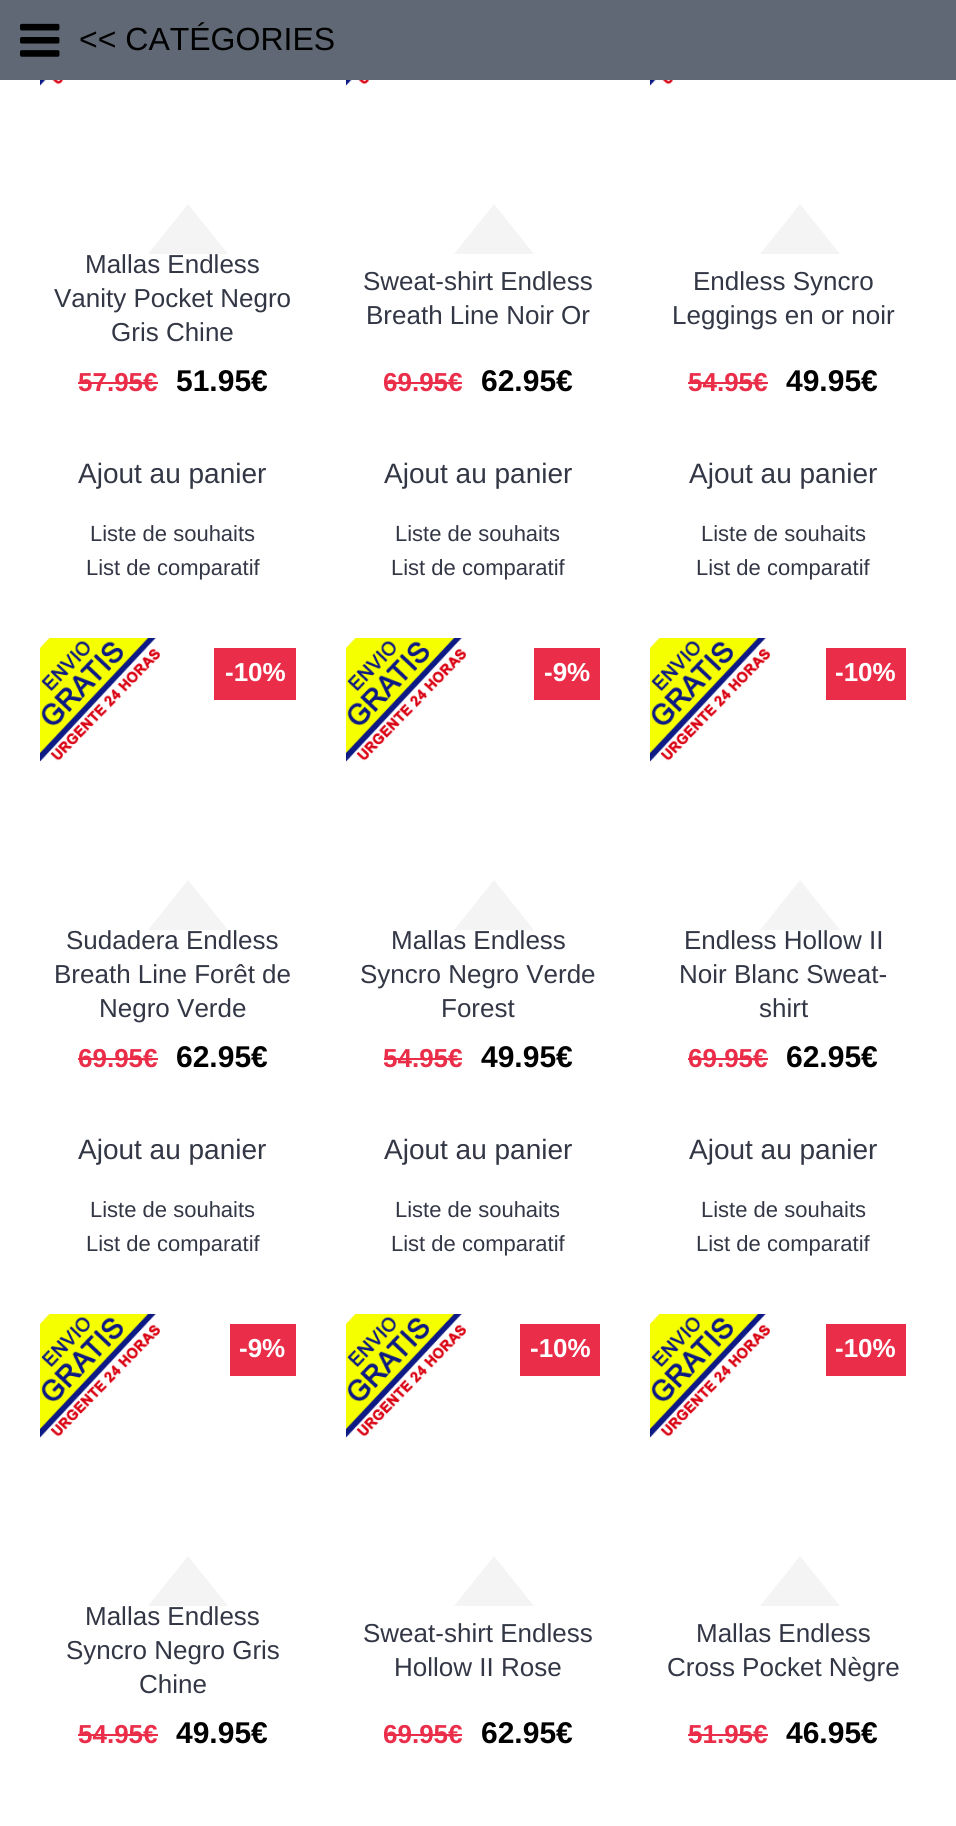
#include <cairo.h>
#include <math.h>
#include <stddef.h>

static cairo_t *c;
static void C(unsigned color){cairo_set_source_rgb(c, (color >> 16) / 255.0, (color >> 8 & 255) / 255.0, (color & 255) / 255.0);}
static void F(const char *family, double size, int italic, int bold){cairo_select_font_face(c, family, italic ? CAIRO_FONT_SLANT_ITALIC : CAIRO_FONT_SLANT_NORMAL,bold ? CAIRO_FONT_WEIGHT_BOLD : CAIRO_FONT_WEIGHT_NORMAL);cairo_set_font_size(c, size);}
static void T(double x, double y, const char *s){cairo_move_to(c, x, y);cairo_show_text(c, s);}
static void R(double x, double y, double w, double h){cairo_rectangle(c, x, y, w, h);cairo_fill(c);}
static void I(const char *path, double x, double y, double w, double h){cairo_surface_t *image = cairo_image_surface_create_from_png(path);cairo_save(c);cairo_set_source_surface(c, image, x, y);cairo_rectangle(c, x, y, w, h);cairo_fill(c);cairo_restore(c);cairo_surface_destroy(image);}
int main(void) {
cairo_surface_t *surface = cairo_image_surface_create(CAIRO_FORMAT_RGB24, 956, 1826);
c = cairo_create(surface);
cairo_font_options_t *options = cairo_font_options_create();
cairo_font_options_set_hint_metrics(options, CAIRO_HINT_METRICS_OFF);
cairo_font_options_set_hint_style(options, CAIRO_HINT_STYLE_NONE);
cairo_set_font_options(c, options);
cairo_set_miter_limit(c, 4);
C(0xffffff);
cairo_paint(c);
C(0x5f6874);
R(0,0,956,80);
I("1.png",20,23,40,34);
F("Liberation Sans",32,0,0);
C(0x000000);
T(79,50,"<< CATÉGORIES");
I("2.png",40,80,23,6);
C(0xf4f4f4);
cairo_new_path(c);
cairo_move_to(c,148,254);
cairo_line_to(c,228,254);
cairo_line_to(c,188,204);
cairo_close_path(c);
cairo_fill(c);
F("Liberation Sans",26,0,0);
C(0x333745);
T(85,273,"Mallas Endless");
T(54,307,"Vanity Pocket Negro");
T(111,341,"Gris Chine");
F("Liberation Sans",26,0,1);
C(0xea2e49);
T(78,391,"57.95€");
R(78,382,80,2);
F("Liberation Sans",30,0,1);
C(0x000000);
T(176,391,"51.95€");
F("Liberation Sans",28,0,0);
C(0x333745);
T(78,483,"Ajout au panier");
F("Liberation Sans",22,0,0);
T(90,541,"Liste de souhaits");
T(86,575,"List de comparatif");
I("3.png",346,80,23,6);
C(0xf4f4f4);
cairo_new_path(c);
cairo_move_to(c,454,254);
cairo_line_to(c,534,254);
cairo_line_to(c,494,204);
cairo_close_path(c);
cairo_fill(c);
F("Liberation Sans",26,0,0);
C(0x333745);
T(363,290,"Sweat-shirt Endless");
T(366,324,"Breath Line Noir Or");
F("Liberation Sans",26,0,1);
C(0xea2e49);
T(383,391,"69.95€");
R(384,382,78,2);
F("Liberation Sans",30,0,1);
C(0x000000);
T(481,391,"62.95€");
F("Liberation Sans",28,0,0);
C(0x333745);
T(384,483,"Ajout au panier");
F("Liberation Sans",22,0,0);
T(395,541,"Liste de souhaits");
T(391,575,"List de comparatif");
I("2.png",650,80,23,6);
C(0xf4f4f4);
cairo_new_path(c);
cairo_move_to(c,760,254);
cairo_line_to(c,840,254);
cairo_line_to(c,800,204);
cairo_close_path(c);
cairo_fill(c);
F("Liberation Sans",26,0,0);
C(0x333745);
T(693,290,"Endless Syncro");
T(672,324,"Leggings en or noir");
F("Liberation Sans",26,0,1);
C(0xea2e49);
T(688,391,"54.95€");
R(688,382,80,2);
F("Liberation Sans",30,0,1);
C(0x000000);
T(786,391,"49.95€");
F("Liberation Sans",28,0,0);
C(0x333745);
T(689,483,"Ajout au panier");
F("Liberation Sans",22,0,0);
T(701,541,"Liste de souhaits");
T(696,575,"List de comparatif");
I("4.png",40,638,120,124);
C(0xea2e49);
R(214,648,82,52);
F("Liberation Sans",26,0,1);
C(0xffffff);
T(225,681,"-10%");
C(0xf4f4f4);
cairo_new_path(c);
cairo_move_to(c,148,930);
cairo_line_to(c,228,930);
cairo_line_to(c,188,880);
cairo_close_path(c);
cairo_fill(c);
F("Liberation Sans",26,0,0);
C(0x333745);
T(66,949,"Sudadera Endless");
T(54,983,"Breath Line Forêt de");
T(99,1017,"Negro Verde");
F("Liberation Sans",26,0,1);
C(0xea2e49);
T(78,1067,"69.95€");
R(78,1058,80,2);
F("Liberation Sans",30,0,1);
C(0x000000);
T(176,1067,"62.95€");
F("Liberation Sans",28,0,0);
C(0x333745);
T(78,1159,"Ajout au panier");
F("Liberation Sans",22,0,0);
T(90,1217,"Liste de souhaits");
T(86,1251,"List de comparatif");
I("5.png",346,638,120,124);
C(0xea2e49);
R(534,648,66,52);
F("Liberation Sans",26,0,1);
C(0xffffff);
T(544,681,"-9%");
C(0xf4f4f4);
cairo_new_path(c);
cairo_move_to(c,454,930);
cairo_line_to(c,534,930);
cairo_line_to(c,494,880);
cairo_close_path(c);
cairo_fill(c);
F("Liberation Sans",26,0,0);
C(0x333745);
T(391,949,"Mallas Endless");
T(360,983,"Syncro Negro Verde");
T(441,1017,"Forest");
F("Liberation Sans",26,0,1);
C(0xea2e49);
T(383,1067,"54.95€");
R(384,1058,78,2);
F("Liberation Sans",30,0,1);
C(0x000000);
T(481,1067,"49.95€");
F("Liberation Sans",28,0,0);
C(0x333745);
T(384,1159,"Ajout au panier");
F("Liberation Sans",22,0,0);
T(395,1217,"Liste de souhaits");
T(391,1251,"List de comparatif");
I("4.png",650,638,120,124);
C(0xea2e49);
R(826,648,80,52);
F("Liberation Sans",26,0,1);
C(0xffffff);
T(835,681,"-10%");
C(0xf4f4f4);
cairo_new_path(c);
cairo_move_to(c,760,930);
cairo_line_to(c,840,930);
cairo_line_to(c,800,880);
cairo_close_path(c);
cairo_fill(c);
F("Liberation Sans",26,0,0);
C(0x333745);
T(684,949,"Endless Hollow II");
T(679,983,"Noir Blanc Sweat-");
T(759,1017,"shirt");
F("Liberation Sans",26,0,1);
C(0xea2e49);
T(688,1067,"69.95€");
R(688,1058,80,2);
F("Liberation Sans",30,0,1);
C(0x000000);
T(786,1067,"62.95€");
F("Liberation Sans",28,0,0);
C(0x333745);
T(689,1159,"Ajout au panier");
F("Liberation Sans",22,0,0);
T(701,1217,"Liste de souhaits");
T(696,1251,"List de comparatif");
I("4.png",40,1314,120,124);
C(0xea2e49);
R(230,1324,66,52);
F("Liberation Sans",26,0,1);
C(0xffffff);
T(239,1357,"-9%");
C(0xf4f4f4);
cairo_new_path(c);
cairo_move_to(c,148,1606);
cairo_line_to(c,228,1606);
cairo_line_to(c,188,1556);
cairo_close_path(c);
cairo_fill(c);
F("Liberation Sans",26,0,0);
C(0x333745);
T(85,1625,"Mallas Endless");
T(66,1659,"Syncro Negro Gris");
T(139,1693,"Chine");
F("Liberation Sans",26,0,1);
C(0xea2e49);
T(78,1743,"54.95€");
R(78,1734,80,2);
F("Liberation Sans",30,0,1);
C(0x000000);
T(176,1743,"49.95€");
I("5.png",346,1314,120,124);
C(0xea2e49);
R(520,1324,80,52);
F("Liberation Sans",26,0,1);
C(0xffffff);
T(530,1357,"-10%");
C(0xf4f4f4);
cairo_new_path(c);
cairo_move_to(c,454,1606);
cairo_line_to(c,534,1606);
cairo_line_to(c,494,1556);
cairo_close_path(c);
cairo_fill(c);
F("Liberation Sans",26,0,0);
C(0x333745);
T(363,1642,"Sweat-shirt Endless");
T(394,1676,"Hollow II Rose");
F("Liberation Sans",26,0,1);
C(0xea2e49);
T(383,1743,"69.95€");
R(384,1734,78,2);
F("Liberation Sans",30,0,1);
C(0x000000);
T(481,1743,"62.95€");
I("4.png",650,1314,120,124);
C(0xea2e49);
R(826,1324,80,52);
F("Liberation Sans",26,0,1);
C(0xffffff);
T(835,1357,"-10%");
C(0xf4f4f4);
cairo_new_path(c);
cairo_move_to(c,760,1606);
cairo_line_to(c,840,1606);
cairo_line_to(c,800,1556);
cairo_close_path(c);
cairo_fill(c);
F("Liberation Sans",26,0,0);
C(0x333745);
T(696,1642,"Mallas Endless");
T(667,1676,"Cross Pocket Nègre");
F("Liberation Sans",26,0,1);
C(0xea2e49);
T(688,1743,"51.95€");
R(688,1734,80,2);
F("Liberation Sans",30,0,1);
C(0x000000);
T(786,1743,"46.95€");
cairo_surface_write_to_png(surface, "o.png");
cairo_font_options_destroy(options);
cairo_destroy(c);
cairo_surface_destroy(surface);
return 0;
}
